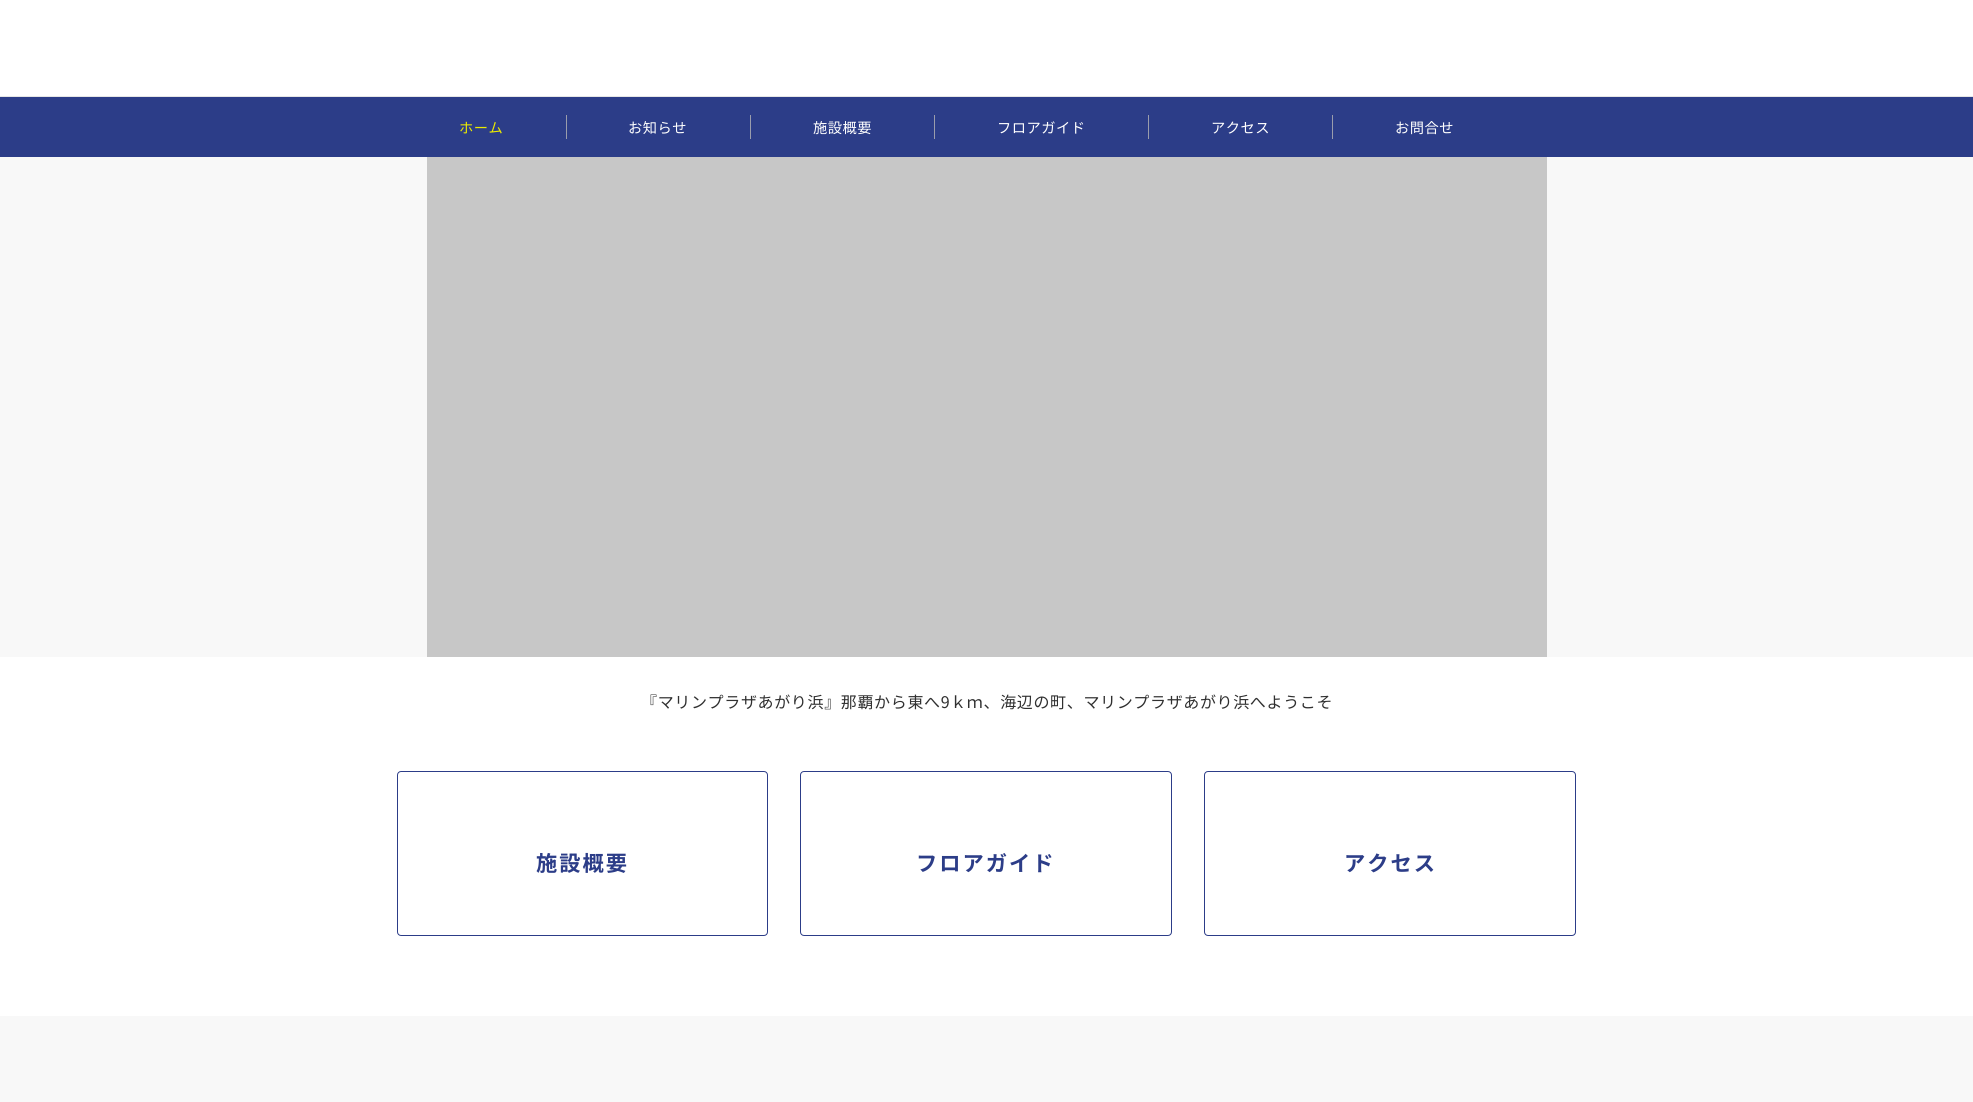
#include <cairo.h>
#include <math.h>
#include <stddef.h>

static cairo_t *c;
static void C(unsigned color){cairo_set_source_rgb(c, (color >> 16) / 255.0, (color >> 8 & 255) / 255.0, (color & 255) / 255.0);}
static void F(const char *family, double size, int italic, int bold){cairo_select_font_face(c, family, italic ? CAIRO_FONT_SLANT_ITALIC : CAIRO_FONT_SLANT_NORMAL,bold ? CAIRO_FONT_WEIGHT_BOLD : CAIRO_FONT_WEIGHT_NORMAL);cairo_set_font_size(c, size);}
static void L(double x, double y, const char *s, double letter, double word){cairo_move_to(c, x, y);while (*s) {char ch[5] = {0};int n = 0;do ch[n++] = *s++; while ((*s & 0xC0) == 0x80);cairo_show_text(c, ch);cairo_rel_move_to(c, letter + word * (*ch == ' '), 0);}}
static void R(double x, double y, double w, double h){cairo_rectangle(c, x, y, w, h);cairo_fill(c);}
static void Q(double x, double y, double w, double h, double r){cairo_new_sub_path(c);cairo_arc(c, x + w - r, y + h - r, r, 0, M_PI / 2);cairo_arc(c, x + r, y + h - r, r, M_PI / 2, M_PI);cairo_arc(c, x + r, y + r, r, M_PI, 1.5 * M_PI);cairo_arc(c, x + w - r, y + r, r, 1.5 * M_PI, 2 * M_PI);cairo_close_path(c);}
int main(void) {
cairo_surface_t *surface = cairo_image_surface_create(CAIRO_FORMAT_RGB24, 1973, 1102);
c = cairo_create(surface);
cairo_font_options_t *options = cairo_font_options_create();
cairo_font_options_set_hint_metrics(options, CAIRO_HINT_METRICS_OFF);
cairo_font_options_set_hint_style(options, CAIRO_HINT_STYLE_NONE);
cairo_set_font_options(c, options);
cairo_set_miter_limit(c, 4);
C(0xf8f8f8);
cairo_paint(c);
C(0xffffff);
R(0,0,1973,96);
C(0xe6e6e6);
R(0,96,1973,1);
C(0x2c3d88);
R(0,97,1973,60);
F("Noto Sans JP",14.25,0,0);
C(0xeaea00);
L(459,133,"ホーム",.5,0);
C(0x9a9dac);
R(566,115,1,24);
C(0xffffff);
L(628,133,"お知らせ",.5,0);
C(0x9a9dac);
R(750,115,1,24);
C(0xffffff);
L(813,133,"施設概要",.5,0);
C(0x9a9dac);
R(934,115,1,24);
C(0xffffff);
L(997,133,"フロアガイド",.5,0);
C(0x9a9dac);
R(1148,115,1,24);
C(0xffffff);
L(1211,133,"アクセス",.5,0);
C(0x9a9dac);
R(1332,115,1,24);
C(0xffffff);
L(1395,133,"お問合せ",.5,0);
C(0xc7c7c7);
R(427,157,1120,500);
C(0xffffff);
R(0,657,1973,359);
F("Noto Sans JP",16,0,0);
C(0x303030);
L(641,708,"『マリンプラザあがり浜』那覇から東へ9ｋｍ、海辺の町、マリンプラザあがり浜へようこそ",.65,0);
Q(397.5,771.5,370,164,3.5);
C(0x2c3d88);
cairo_set_line_width(c,1);
cairo_stroke(c);
F("Noto Sans JP",21.25,0,1);
L(536,871,"施設概要",2,0);
Q(800.5,771.5,371,164,3.5);
cairo_stroke(c);
L(916,871,"フロアガイド",2,0);
Q(1204.5,771.5,371,164,3.5);
cairo_stroke(c);
L(1344,871,"アクセス",2,0);
cairo_surface_write_to_png(surface, "o.png");
cairo_font_options_destroy(options);
cairo_destroy(c);
cairo_surface_destroy(surface);
return 0;
}
